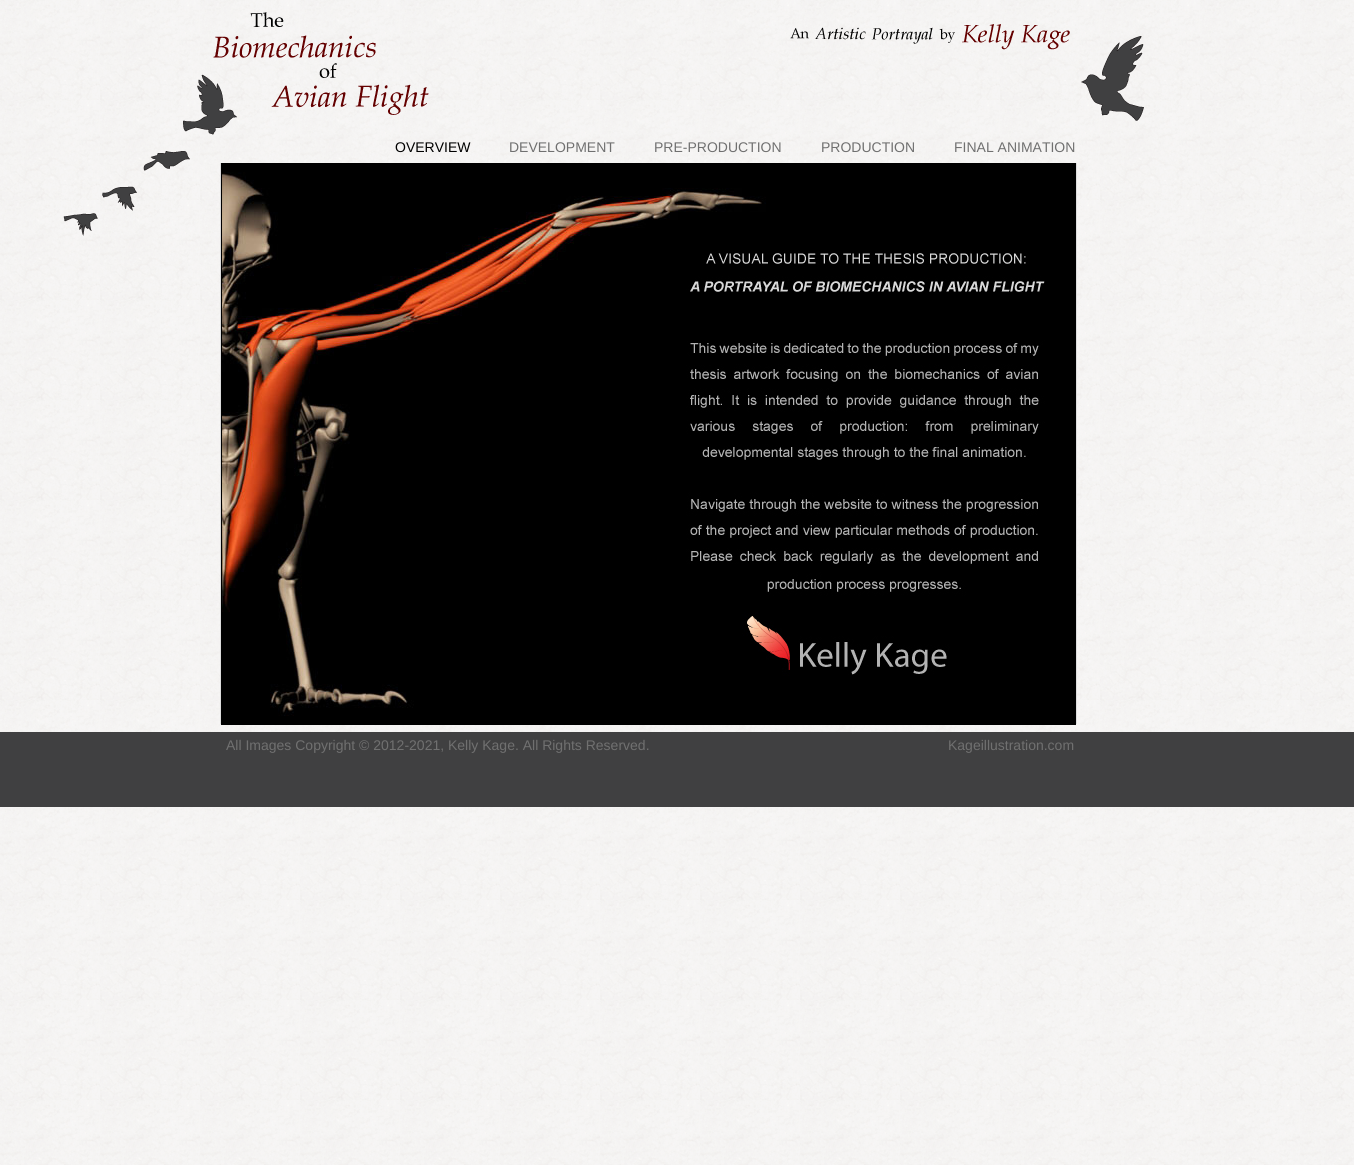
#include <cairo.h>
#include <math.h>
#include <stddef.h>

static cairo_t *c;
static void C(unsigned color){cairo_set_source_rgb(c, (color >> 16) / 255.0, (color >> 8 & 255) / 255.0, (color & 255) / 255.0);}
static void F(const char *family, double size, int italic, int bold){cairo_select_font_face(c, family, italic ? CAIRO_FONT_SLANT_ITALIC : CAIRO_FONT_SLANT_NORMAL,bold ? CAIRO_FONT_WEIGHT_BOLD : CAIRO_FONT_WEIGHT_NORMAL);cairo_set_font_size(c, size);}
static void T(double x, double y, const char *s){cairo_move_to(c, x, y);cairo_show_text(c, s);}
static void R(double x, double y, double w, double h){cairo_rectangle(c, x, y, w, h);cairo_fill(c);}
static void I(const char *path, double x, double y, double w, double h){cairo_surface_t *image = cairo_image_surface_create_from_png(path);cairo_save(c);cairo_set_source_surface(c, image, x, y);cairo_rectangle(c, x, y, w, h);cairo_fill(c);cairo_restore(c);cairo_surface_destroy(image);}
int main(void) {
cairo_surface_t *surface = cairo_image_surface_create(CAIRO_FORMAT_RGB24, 1354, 1165);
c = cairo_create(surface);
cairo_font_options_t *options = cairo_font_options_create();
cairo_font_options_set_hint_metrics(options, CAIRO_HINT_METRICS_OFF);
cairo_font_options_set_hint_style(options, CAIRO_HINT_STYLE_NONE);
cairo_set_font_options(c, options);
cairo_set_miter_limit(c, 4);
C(0xffffff);
cairo_paint(c);
I("1.png",0,0,1354,1165);
C(0xdddddd);
R(220,163,1,561);
I("2.png",63,12,366,224);
I("3.png",790,24,354,97);
F("Liberation Sans",14,0,0);
C(0x000000);
T(395,152,"OVERVIEW");
C(0x707070);
T(509,152,"DEVELOPMENT");
T(654,152,"PRE-PRODUCTION");
T(821,152,"PRODUCTION");
T(954,152,"FINAL ANIMATION");
C(0xdddddd);
R(1076,163,1,561);
C(0x000000);
R(221,163,855,562);
I("4.png",222,172,823,544);
C(0x404041);
R(0,732,1354,75);
C(0x707070);
T(226,750,"All Images Copyright © 2012-2021, Kelly Kage. All Rights Reserved.");
T(948,750,"Kageillustration.com");
cairo_surface_write_to_png(surface, "o.png");
cairo_font_options_destroy(options);
cairo_destroy(c);
cairo_surface_destroy(surface);
return 0;
}
